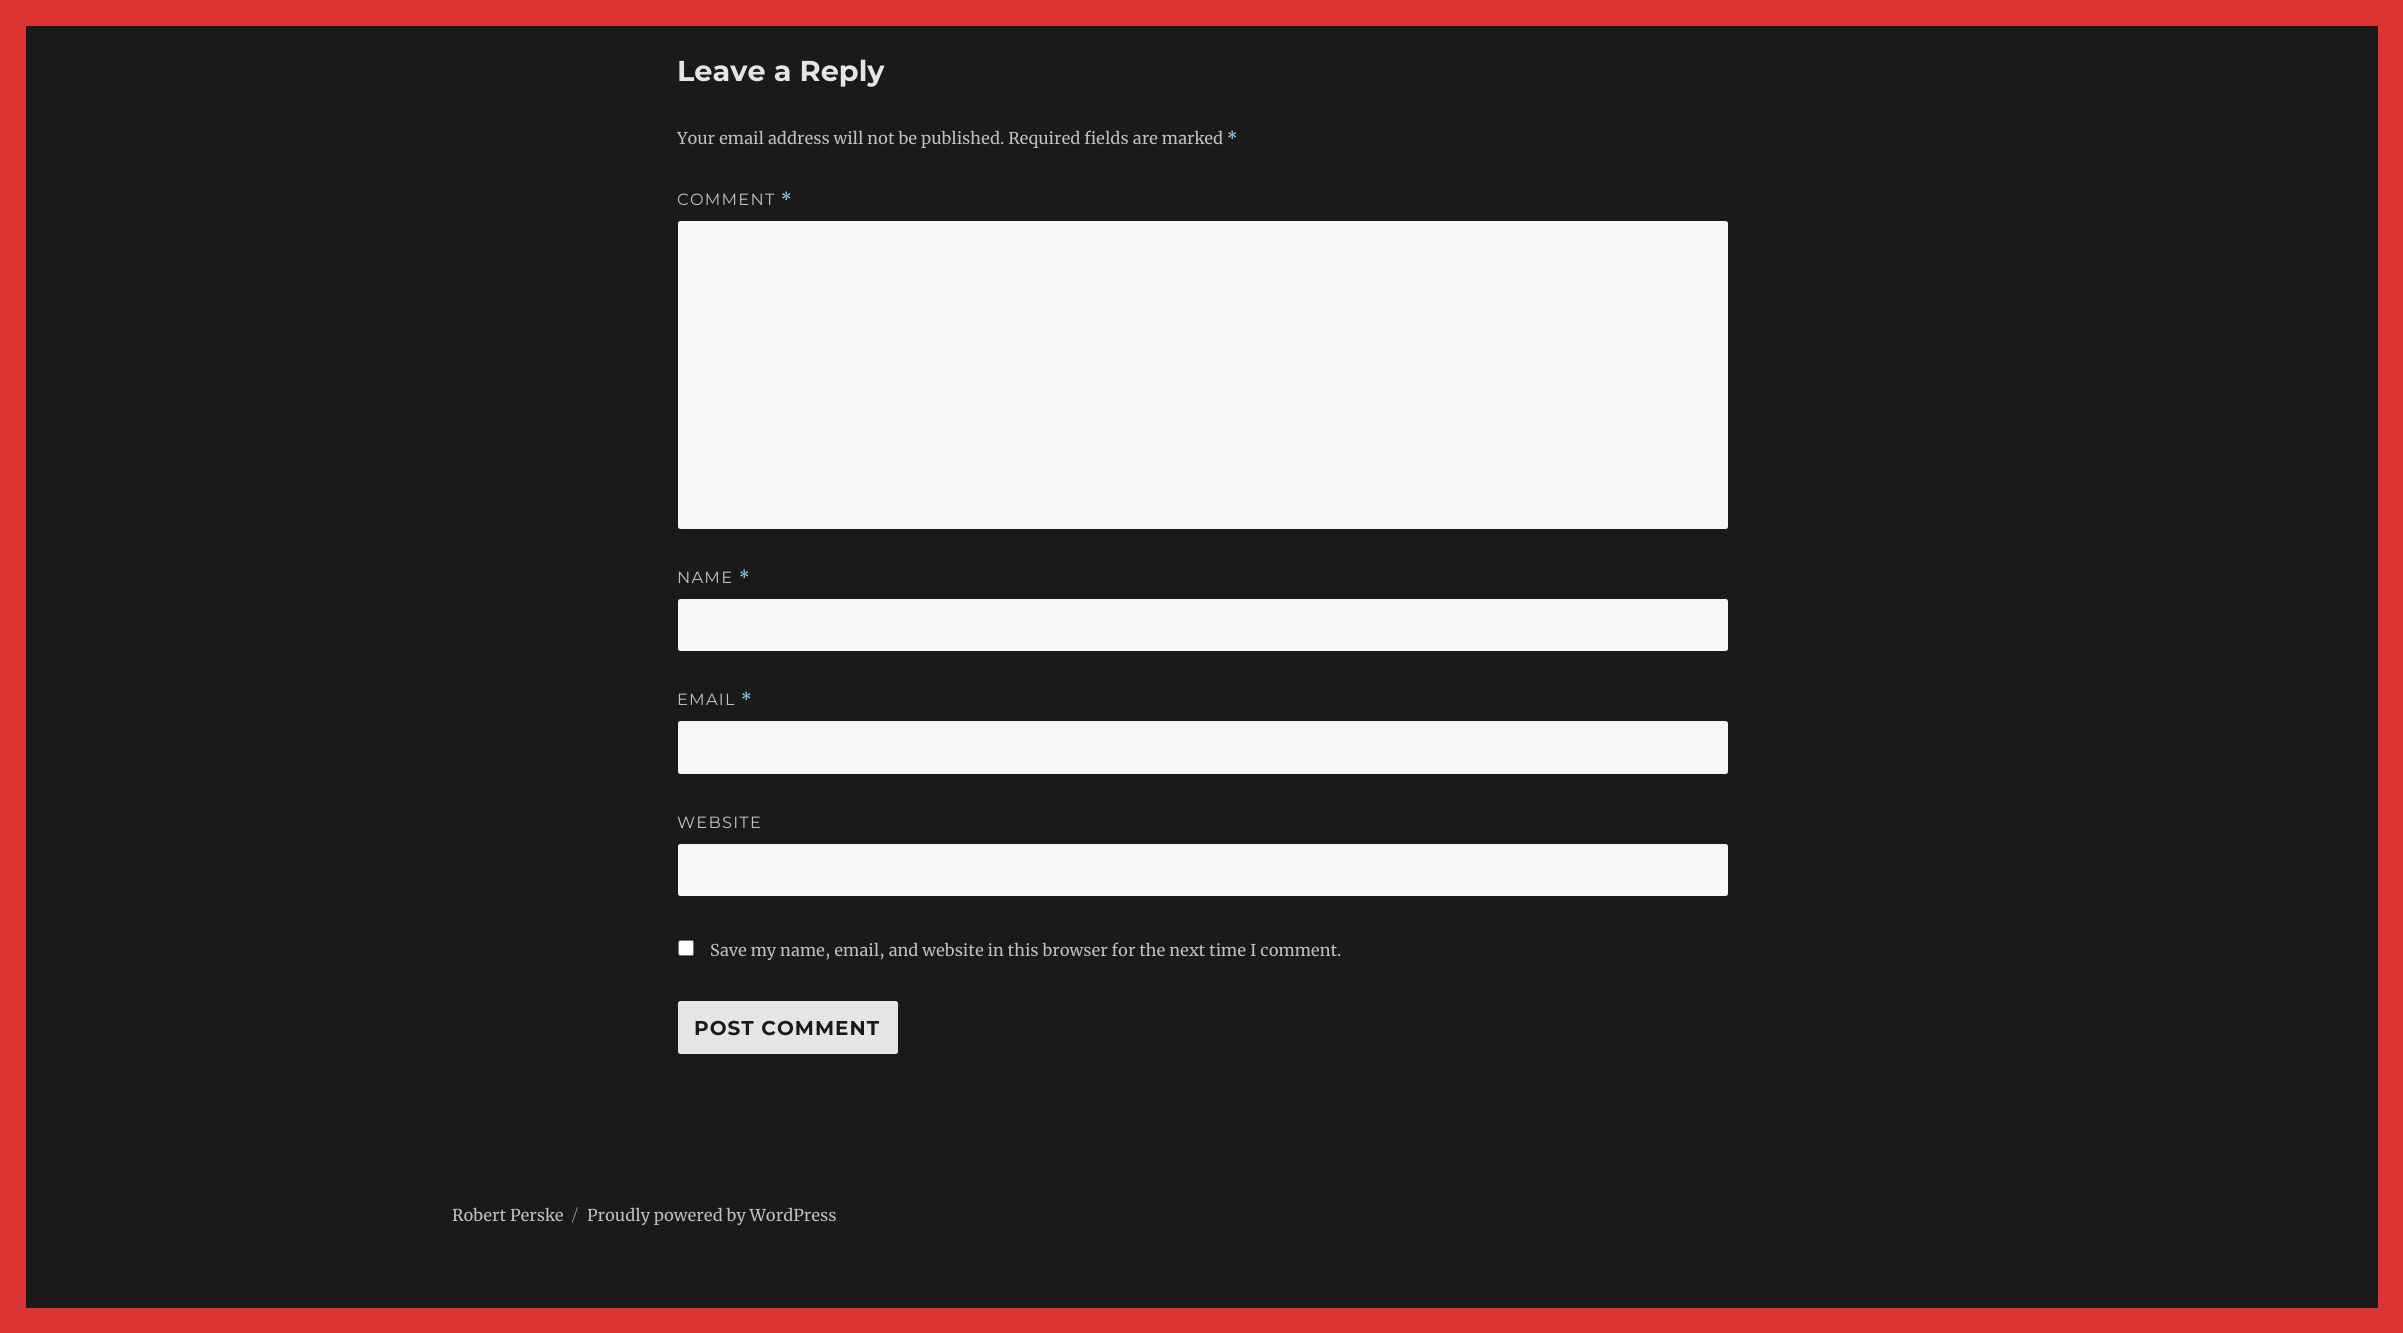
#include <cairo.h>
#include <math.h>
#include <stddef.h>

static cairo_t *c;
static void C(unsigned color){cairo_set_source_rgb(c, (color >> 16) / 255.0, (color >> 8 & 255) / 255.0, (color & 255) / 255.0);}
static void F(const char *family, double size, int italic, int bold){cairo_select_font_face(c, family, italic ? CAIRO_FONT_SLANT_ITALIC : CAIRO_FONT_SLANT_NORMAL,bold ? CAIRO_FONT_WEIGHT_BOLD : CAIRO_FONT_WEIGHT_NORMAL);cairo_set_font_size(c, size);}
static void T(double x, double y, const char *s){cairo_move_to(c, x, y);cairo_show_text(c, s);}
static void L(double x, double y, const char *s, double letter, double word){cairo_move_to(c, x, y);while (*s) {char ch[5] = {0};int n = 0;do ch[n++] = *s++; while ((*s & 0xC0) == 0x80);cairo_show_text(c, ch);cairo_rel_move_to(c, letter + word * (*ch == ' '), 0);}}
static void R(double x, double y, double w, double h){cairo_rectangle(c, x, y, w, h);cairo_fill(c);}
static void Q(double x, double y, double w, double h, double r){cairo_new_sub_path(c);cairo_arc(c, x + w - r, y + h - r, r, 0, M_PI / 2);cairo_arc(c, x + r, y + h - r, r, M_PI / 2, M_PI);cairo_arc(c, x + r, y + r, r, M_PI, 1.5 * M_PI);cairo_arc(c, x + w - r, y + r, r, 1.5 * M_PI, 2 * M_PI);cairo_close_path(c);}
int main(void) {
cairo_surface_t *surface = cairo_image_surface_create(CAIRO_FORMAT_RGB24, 2403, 1333);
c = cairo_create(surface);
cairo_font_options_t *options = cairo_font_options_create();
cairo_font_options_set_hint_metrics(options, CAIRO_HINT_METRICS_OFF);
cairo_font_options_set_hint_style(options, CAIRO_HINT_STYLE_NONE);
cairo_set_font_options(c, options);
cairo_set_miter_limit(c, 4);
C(0xdd3333);
cairo_paint(c);
C(0x1a1a1a);
R(26,26,2352,1282);
F("Montserrat Thin",28.75,0,0);
C(0xe5e5e5);
T(677,81,"Leave a Reply");
F("Merriweather",16.25,0,0);
C(0xc1c1c1);
T(677,144,"Your email address will not be published. Required fields are marked");
C(0x9adffd);
T(1227,144,"*");
F("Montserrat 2 Thin",16.25,0,0);
C(0xc1c1c1);
L(677,205,"COMMENT",1.25,0);
F("Merriweather",16.25,0,0);
C(0x9adffd);
L(781,205,"*",1.25,0);
C(0xf7f7f7);
Q(678,221,1050,308,2.5);
cairo_fill(c);
Q(678.5,221.5,1049,307,2);
cairo_set_source_rgba(c,0.898,0.898,0.898,0.2);
cairo_set_line_width(c,1);
cairo_stroke(c);
F("Montserrat 2 Thin",16.25,0,0);
C(0xc1c1c1);
L(677,583,"NAME",1.25,0);
F("Merriweather",16.25,0,0);
C(0x9adffd);
L(739,583,"*",1.25,0);
C(0xf7f7f7);
Q(678,599,1050,52,2.5);
cairo_fill(c);
Q(678.5,599.5,1049,51,2);
cairo_set_source_rgba(c,0.898,0.898,0.898,0.2);
cairo_stroke(c);
F("Montserrat 2 Thin",16.25,0,0);
C(0xc1c1c1);
L(677,705,"EMAIL",1.25,0);
F("Merriweather",16.25,0,0);
C(0x9adffd);
L(741,705,"*",1.25,0);
C(0xf7f7f7);
Q(678,721,1050,53,2.5);
cairo_fill(c);
Q(678.5,721.5,1049,52,2);
cairo_set_source_rgba(c,0.898,0.898,0.898,0.2);
cairo_stroke(c);
F("Montserrat 2 Thin",16.25,0,0);
C(0xc1c1c1);
L(677,828,"WEBSITE",1.25,0);
C(0xf7f7f7);
Q(678,844,1050,52,2.5);
cairo_fill(c);
Q(678.5,844.5,1049,51,2);
cairo_set_source_rgba(c,0.898,0.898,0.898,0.2);
cairo_stroke(c);
C(0xffffff);
Q(678.5,940.5,15,15,2);
cairo_fill_preserve(c);
C(0x767676);
cairo_stroke(c);
F("Merriweather",16.25,0,0);
C(0xc1c1c1);
T(710,956,"Save my name, email, and website in this browser for the next time I comment.");
C(0xe5e5e5);
Q(678,1001,220,53,2.5);
cairo_fill(c);
F("Montserrat Thin",20,0,0);
C(0x1a1a1a);
L(694,1035,"POST COMMENT",1,0);
F("Merriweather",16.25,0,0);
C(0xc1c1c1);
T(452,1221,"Robert Perske");
F("Montserrat 2 Thin",16.25,0,0);
C(0x8f8f8f);
T(572,1221,"/");
F("Merriweather",16.25,0,0);
C(0xc1c1c1);
T(587,1221,"Proudly powered by WordPress");
cairo_surface_write_to_png(surface, "o.png");
cairo_font_options_destroy(options);
cairo_destroy(c);
cairo_surface_destroy(surface);
return 0;
}
